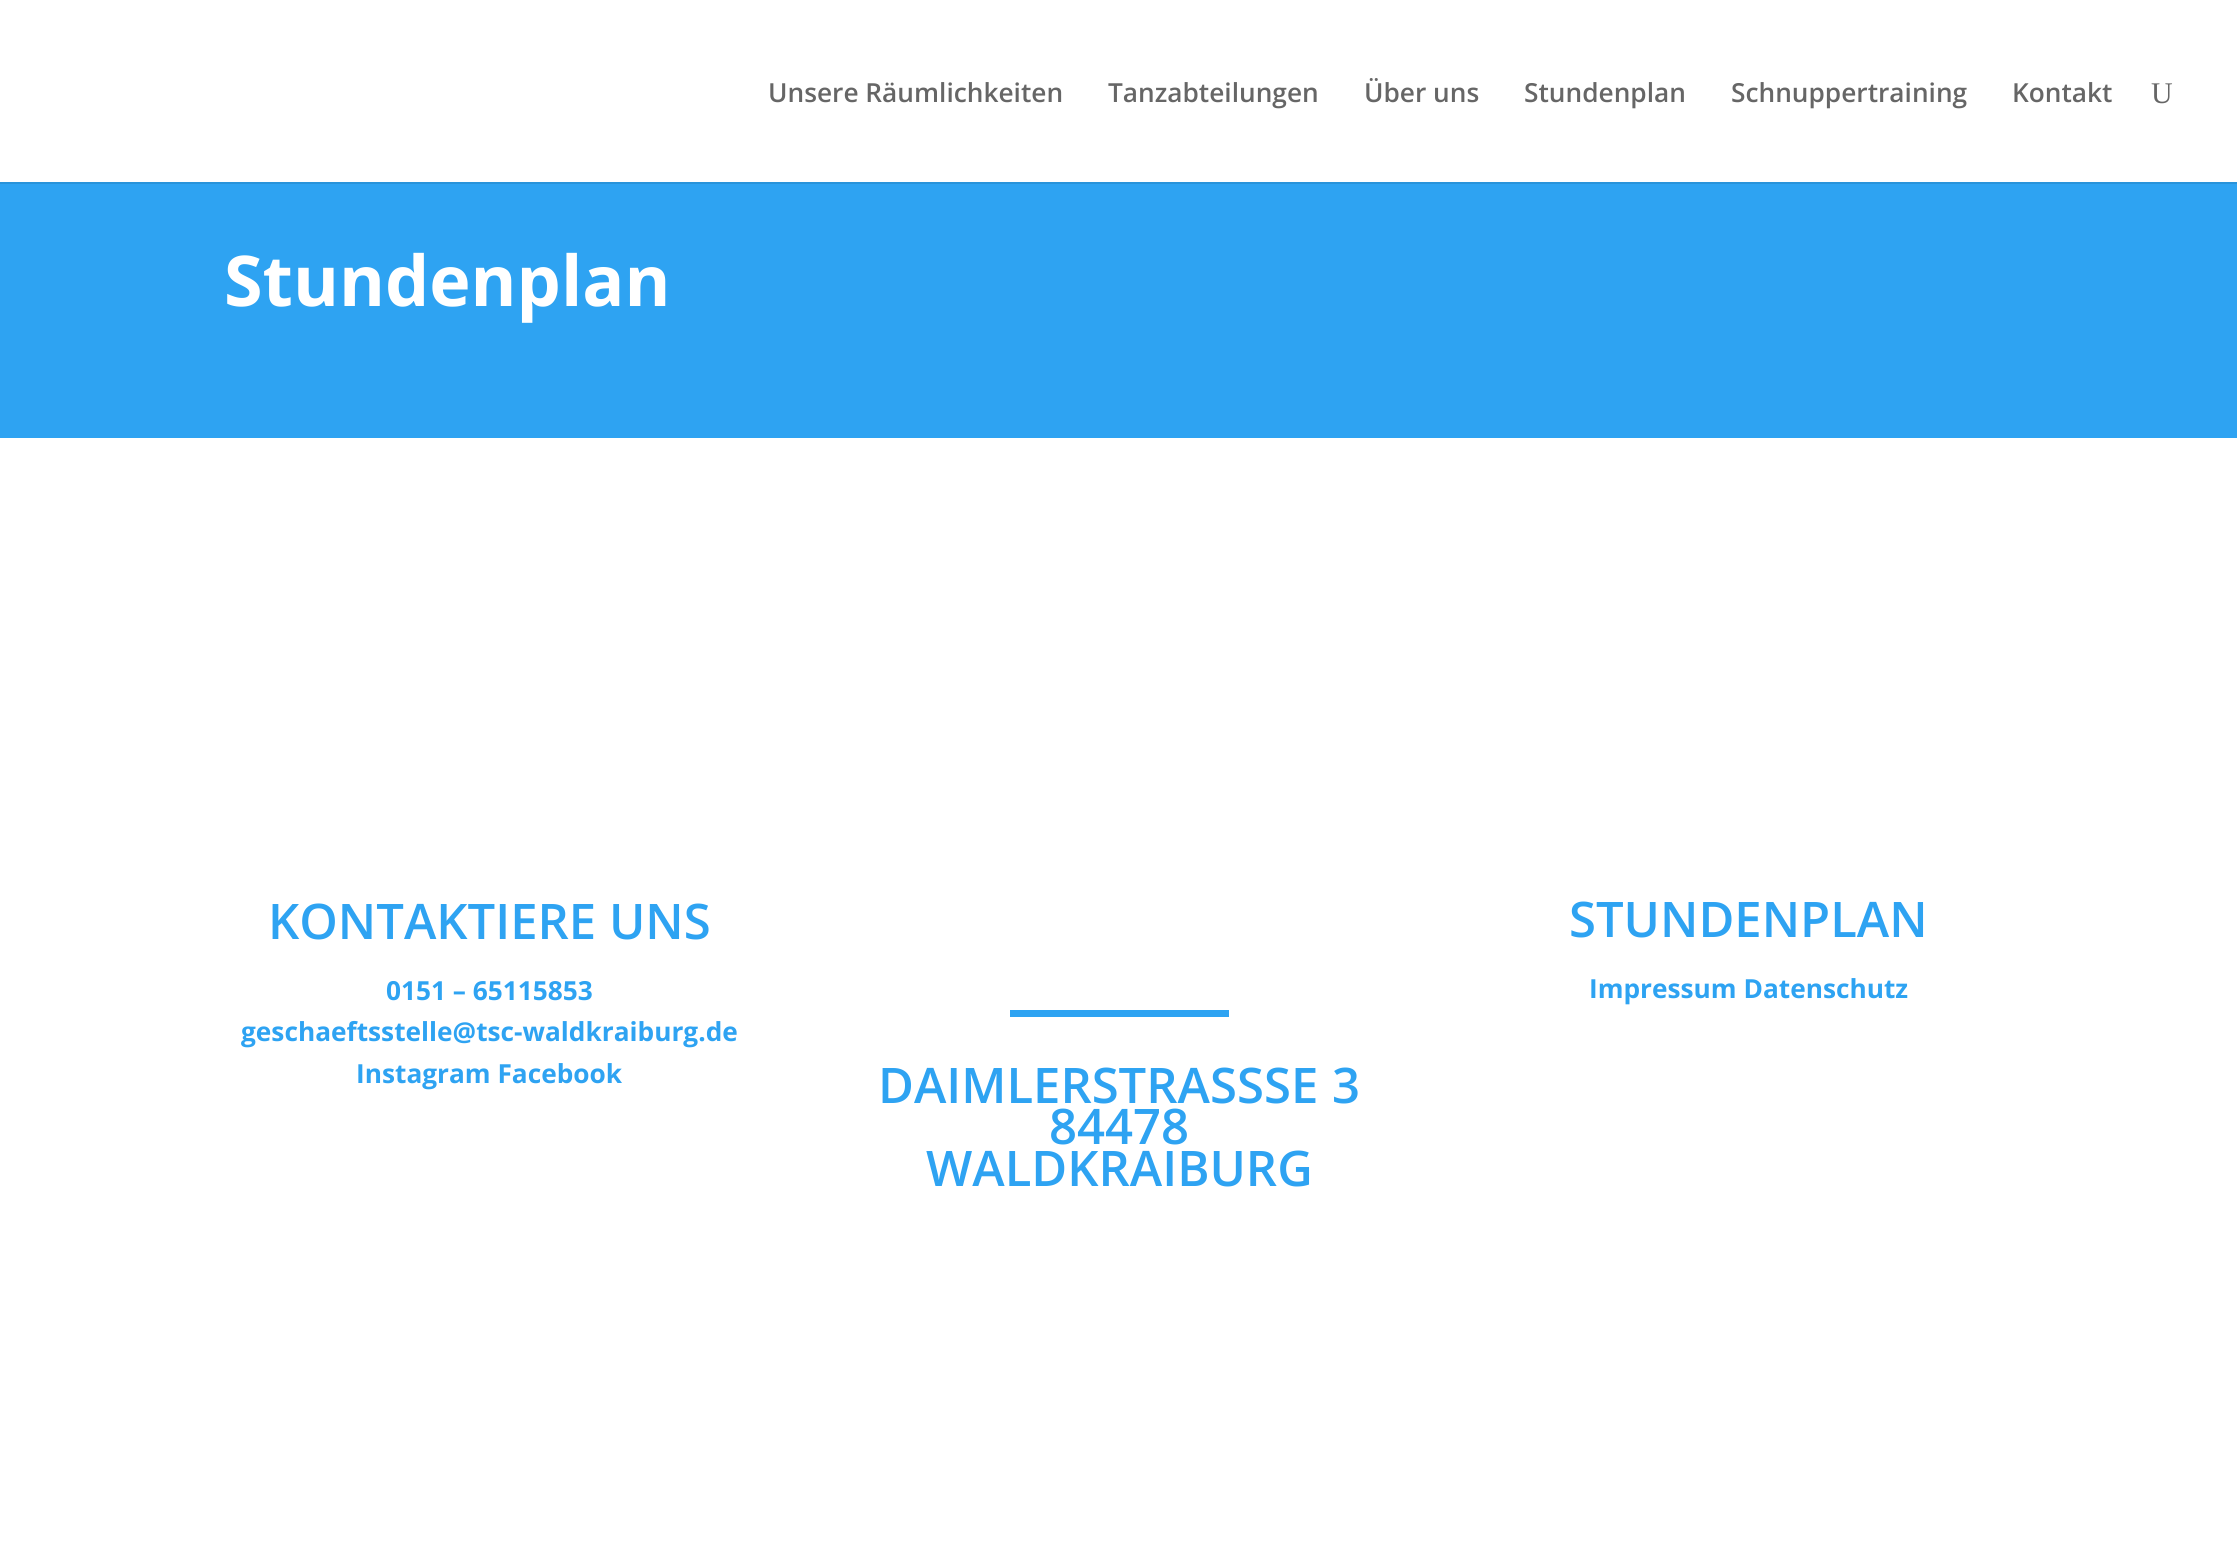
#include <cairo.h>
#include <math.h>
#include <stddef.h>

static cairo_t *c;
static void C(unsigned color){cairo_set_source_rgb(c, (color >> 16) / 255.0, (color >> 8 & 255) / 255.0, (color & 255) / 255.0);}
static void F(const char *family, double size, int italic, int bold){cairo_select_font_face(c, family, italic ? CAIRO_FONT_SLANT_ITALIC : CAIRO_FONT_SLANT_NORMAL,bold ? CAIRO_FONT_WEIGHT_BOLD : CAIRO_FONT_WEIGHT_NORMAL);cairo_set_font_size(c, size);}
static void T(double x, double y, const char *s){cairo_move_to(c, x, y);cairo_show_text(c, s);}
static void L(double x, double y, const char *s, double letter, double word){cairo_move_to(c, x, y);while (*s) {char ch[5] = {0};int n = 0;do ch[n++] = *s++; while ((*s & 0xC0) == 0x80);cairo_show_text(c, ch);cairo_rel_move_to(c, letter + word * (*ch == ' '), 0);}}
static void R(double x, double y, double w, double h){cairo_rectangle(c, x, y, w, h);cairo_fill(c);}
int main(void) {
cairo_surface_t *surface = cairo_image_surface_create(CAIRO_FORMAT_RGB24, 2237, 1548);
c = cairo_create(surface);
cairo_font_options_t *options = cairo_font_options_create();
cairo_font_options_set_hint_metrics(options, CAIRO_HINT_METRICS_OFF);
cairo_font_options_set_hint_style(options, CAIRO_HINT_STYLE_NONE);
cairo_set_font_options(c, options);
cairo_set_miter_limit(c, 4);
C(0xffffff);
cairo_paint(c);
C(0x2993da);
R(0,182,2237,2);
F("Open Sans SemiBold",26.25,0,0);
C(0x666666);
T(768,102,"Unsere Räumlichkeiten");
T(1108,102,"Tanzabteilungen");
T(1364,102,"Über uns");
T(1524,102,"Stundenplan");
T(1731,102,"Schnuppertraining");
T(2012,102,"Kontakt");
F("Liberation Serif",30,0,0);
T(2151,103,"U");
C(0x2ea3f2);
R(0,184,2237,254);
F("Open Sans",70,0,1);
C(0xffffff);
T(224,306,"Stundenplan");
F("Open Sans SemiBold",49,0,0);
C(0x2ea3f2);
T(268,939,"KONTAKTIERE UNS");
F("Open Sans",26.25,0,1);
T(386,1000,"0151 – 65115853");
T(241,1041,"geschaeftsstelle@tsc-waldkraiburg.de");
T(356,1083,"Instagram Facebook");
F("Open Sans SemiBold",49,0,0);
T(1569,937,"STUNDENPLAN");
F("Open Sans",26.25,0,1);
T(1589,998,"Impressum Datenschutz");
R(1010,1010,219,7);
F("Open Sans SemiBold",49,0,0);
T(878,1103,"DAIMLERSTRASS");
L(1264,1103,"SE 3",0,1);
T(1049,1144,"84478");
T(926,1186,"WALDKRAIBURG");
cairo_surface_write_to_png(surface, "o.png");
cairo_font_options_destroy(options);
cairo_destroy(c);
cairo_surface_destroy(surface);
return 0;
}
